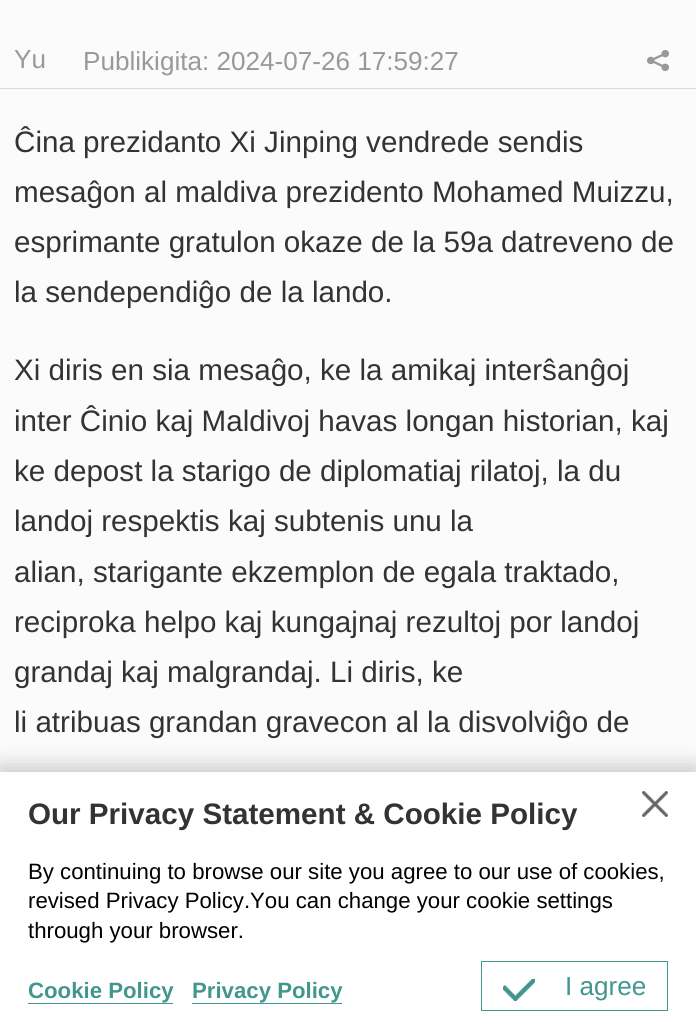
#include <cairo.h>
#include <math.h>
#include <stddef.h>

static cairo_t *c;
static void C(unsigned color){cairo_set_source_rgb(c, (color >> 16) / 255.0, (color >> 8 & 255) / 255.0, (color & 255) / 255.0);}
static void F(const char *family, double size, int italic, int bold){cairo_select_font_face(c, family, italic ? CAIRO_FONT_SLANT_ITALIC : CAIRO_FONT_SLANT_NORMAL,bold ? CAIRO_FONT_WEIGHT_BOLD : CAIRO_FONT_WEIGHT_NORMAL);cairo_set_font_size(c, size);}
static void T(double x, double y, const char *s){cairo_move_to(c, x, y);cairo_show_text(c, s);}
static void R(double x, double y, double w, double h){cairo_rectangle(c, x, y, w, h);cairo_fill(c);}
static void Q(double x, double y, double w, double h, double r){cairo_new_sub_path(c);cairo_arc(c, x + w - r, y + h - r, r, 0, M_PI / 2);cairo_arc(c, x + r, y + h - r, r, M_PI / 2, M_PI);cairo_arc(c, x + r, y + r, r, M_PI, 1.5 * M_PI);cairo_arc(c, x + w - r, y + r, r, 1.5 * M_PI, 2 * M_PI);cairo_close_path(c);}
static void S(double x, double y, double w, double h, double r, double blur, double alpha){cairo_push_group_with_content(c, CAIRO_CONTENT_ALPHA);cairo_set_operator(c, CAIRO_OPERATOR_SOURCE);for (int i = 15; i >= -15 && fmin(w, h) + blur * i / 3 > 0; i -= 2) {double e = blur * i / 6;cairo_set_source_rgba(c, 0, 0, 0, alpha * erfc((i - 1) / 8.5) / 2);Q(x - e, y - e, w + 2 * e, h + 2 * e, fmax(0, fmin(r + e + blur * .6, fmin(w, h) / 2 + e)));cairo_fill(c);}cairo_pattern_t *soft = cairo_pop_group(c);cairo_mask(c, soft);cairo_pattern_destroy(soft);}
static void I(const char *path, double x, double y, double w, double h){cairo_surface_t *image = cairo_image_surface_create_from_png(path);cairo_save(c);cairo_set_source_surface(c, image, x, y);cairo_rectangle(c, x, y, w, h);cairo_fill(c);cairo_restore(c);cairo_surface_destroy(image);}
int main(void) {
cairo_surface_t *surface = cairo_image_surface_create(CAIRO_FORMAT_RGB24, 696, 1030);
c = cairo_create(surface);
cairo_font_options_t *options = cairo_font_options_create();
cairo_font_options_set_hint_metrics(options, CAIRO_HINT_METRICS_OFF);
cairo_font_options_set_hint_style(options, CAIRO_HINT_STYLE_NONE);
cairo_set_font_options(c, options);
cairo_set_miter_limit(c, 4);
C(0xfbfbfb);
cairo_paint(c);
C(0xd9d9d9);
R(0,88,696,1);
F("Liberation Sans",26.1,0,0);
C(0x999999);
T(14,68,"Yu");
T(83,70,"Publikigita: 2024-07-26 17:59:27");
I("1.png",647,50,22,21);
F("Liberation Sans",29.6,0,0);
C(0x333333);
T(14,152,"Ĉina prezidanto Xi Jinping vendrede sendis");
T(14,202,"mesaĝon al maldiva prezidento Mohamed Muizzu,");
T(14,252,"esprimante gratulon okaze de la 59a datreveno de");
T(14,302,"la sendependiĝo de la lando.");
T(14,380,"Xi diris en sia mesaĝo, ke la amikaj interŝanĝoj");
T(14,431,"inter Ĉinio kaj Maldivoj havas longan historian, kaj");
T(14,481,"ke depost la starigo de diplomatiaj rilatoj, la du");
T(14,531,"landoj respektis kaj subtenis unu la");
T(14,582,"alian, starigante ekzemplon de egala traktado,");
T(14,632,"reciproka helpo kaj kungajnaj rezultoj por landoj");
T(14,682,"grandaj kaj malgrandaj. Li diris, ke");
T(14,732,"li atribuas grandan gravecon al la disvolviĝo de");
C(0x000000);
S(0,765,696,258,0,10,.19);
C(0xffffff);
R(0,772,696,258);
F("Liberation Sans",29.6,0,1);
C(0x333333);
T(28,824,"Our Privacy Statement & Cookie Policy");
I("2.png",642,791,26,26);
F("Liberation Sans",22.2,0,0);
C(0x000000);
T(28,879,"By continuing to browse our site you agree to our use of cookies,");
T(28,908,"revised Privacy Policy.You can change your cookie settings");
T(28,938,"through your browser.");
F("Liberation Sans",22.2,0,1);
C(0x43968d);
T(28,998,"Cookie Policy");
R(28,1003,145,1);
T(192,998,"Privacy Policy");
R(192,1003,150,1);
cairo_rectangle(c,481.5,961.5,186,49);
cairo_set_line_width(c,1);
cairo_stroke(c);
I("3.png",503,979,32,23);
F("Liberation Sans",26.1,0,0);
T(565,995,"I agree");
cairo_surface_write_to_png(surface, "o.png");
cairo_font_options_destroy(options);
cairo_destroy(c);
cairo_surface_destroy(surface);
return 0;
}
